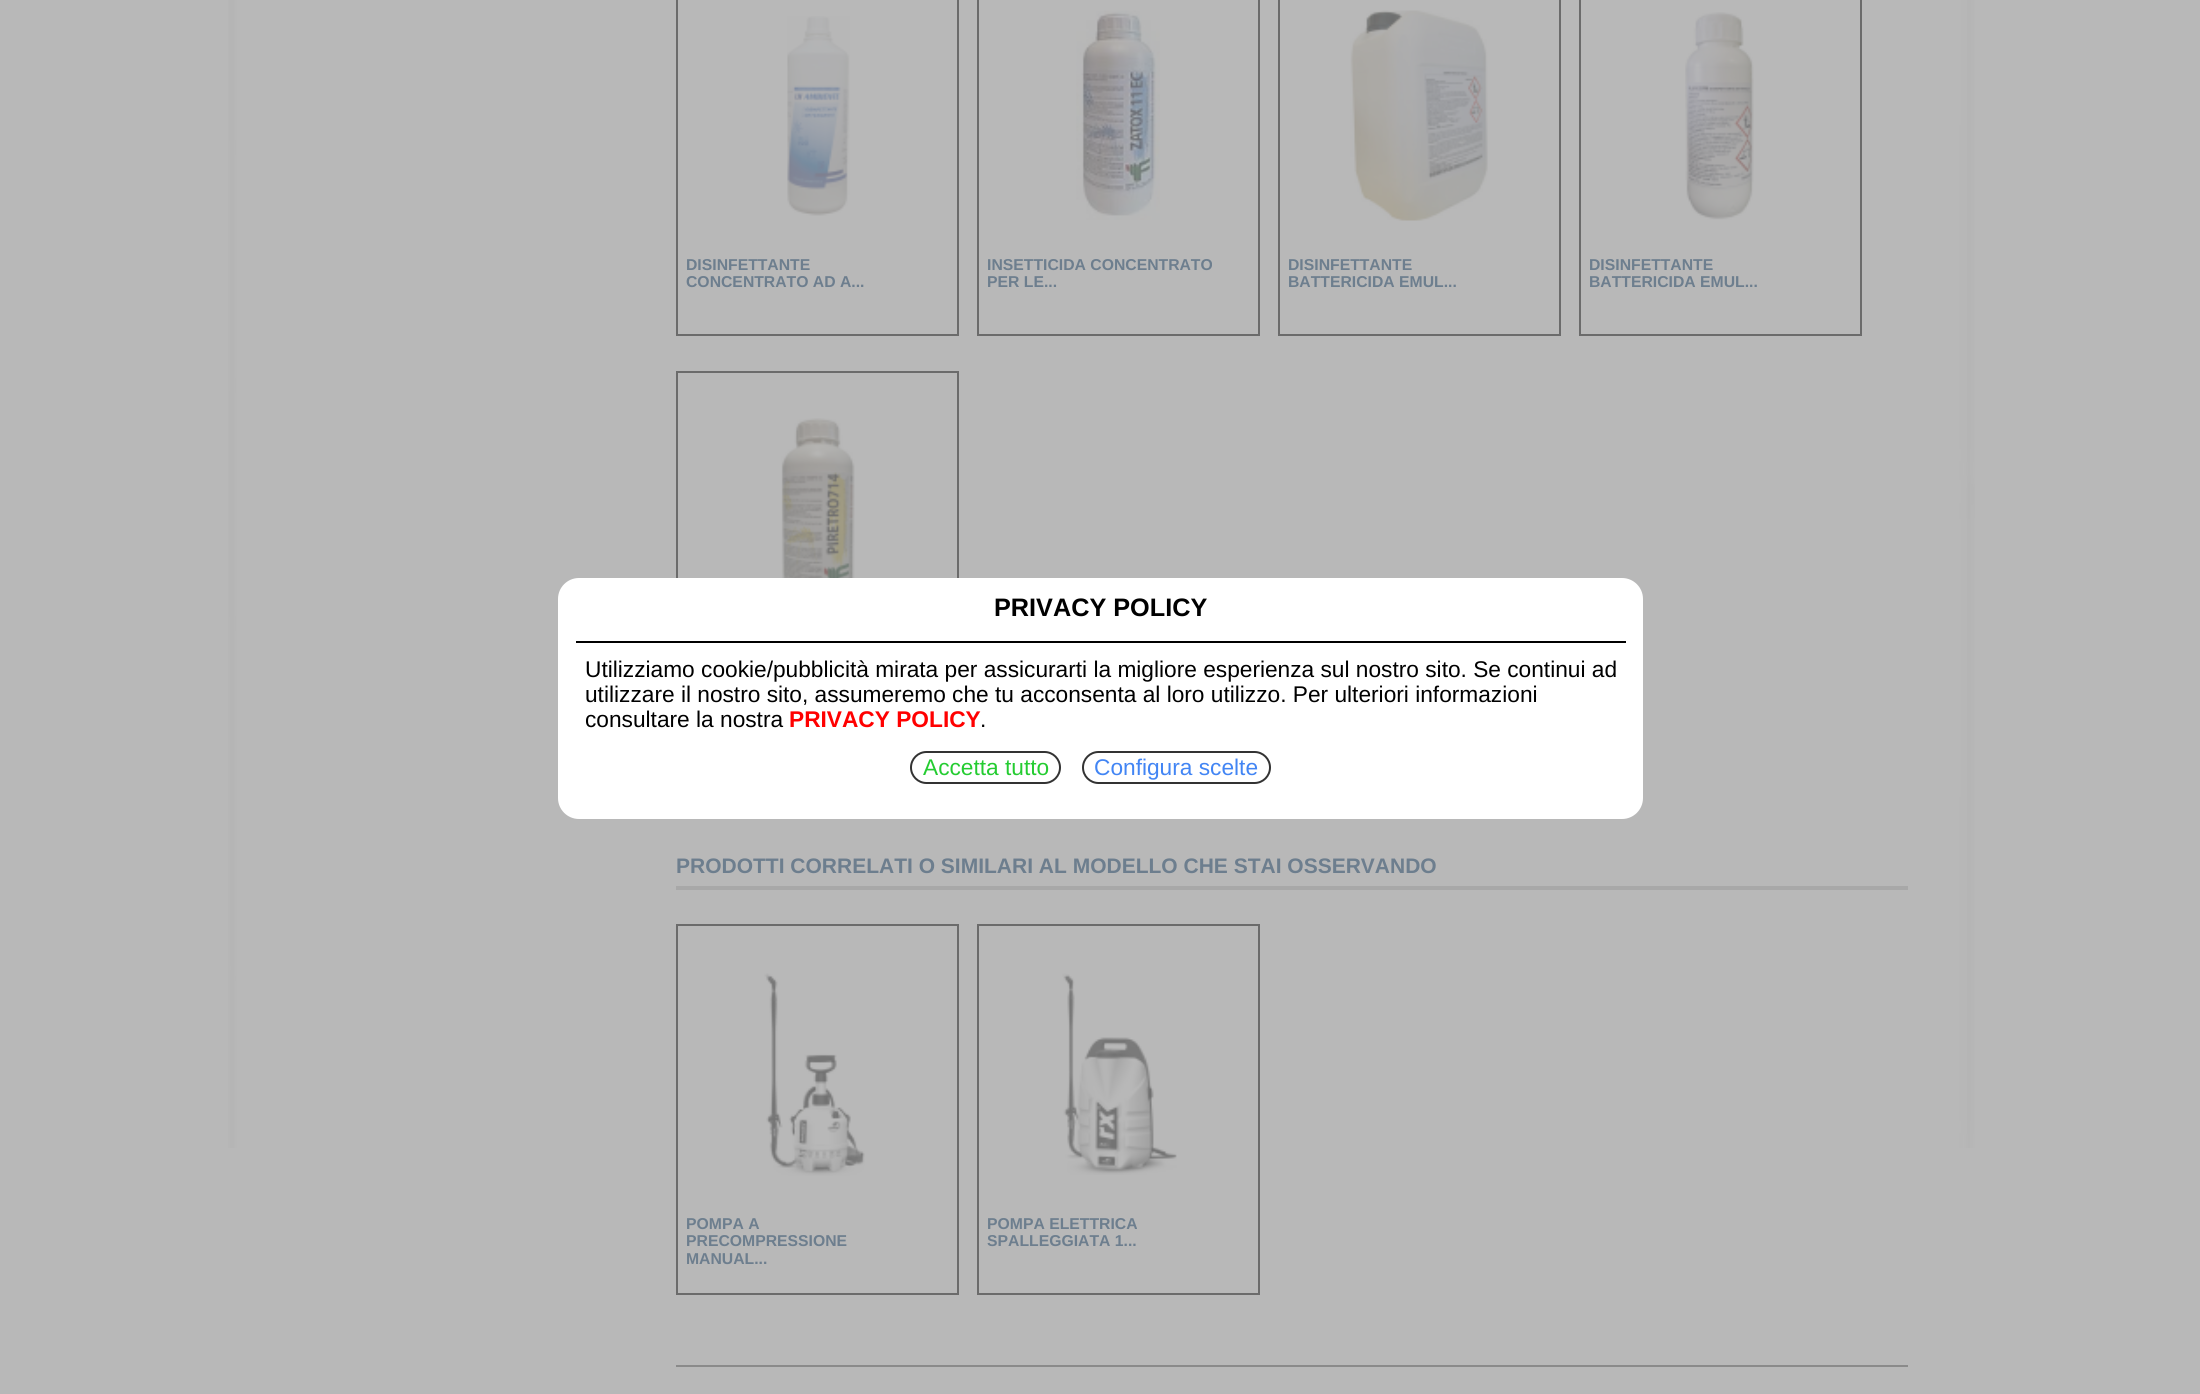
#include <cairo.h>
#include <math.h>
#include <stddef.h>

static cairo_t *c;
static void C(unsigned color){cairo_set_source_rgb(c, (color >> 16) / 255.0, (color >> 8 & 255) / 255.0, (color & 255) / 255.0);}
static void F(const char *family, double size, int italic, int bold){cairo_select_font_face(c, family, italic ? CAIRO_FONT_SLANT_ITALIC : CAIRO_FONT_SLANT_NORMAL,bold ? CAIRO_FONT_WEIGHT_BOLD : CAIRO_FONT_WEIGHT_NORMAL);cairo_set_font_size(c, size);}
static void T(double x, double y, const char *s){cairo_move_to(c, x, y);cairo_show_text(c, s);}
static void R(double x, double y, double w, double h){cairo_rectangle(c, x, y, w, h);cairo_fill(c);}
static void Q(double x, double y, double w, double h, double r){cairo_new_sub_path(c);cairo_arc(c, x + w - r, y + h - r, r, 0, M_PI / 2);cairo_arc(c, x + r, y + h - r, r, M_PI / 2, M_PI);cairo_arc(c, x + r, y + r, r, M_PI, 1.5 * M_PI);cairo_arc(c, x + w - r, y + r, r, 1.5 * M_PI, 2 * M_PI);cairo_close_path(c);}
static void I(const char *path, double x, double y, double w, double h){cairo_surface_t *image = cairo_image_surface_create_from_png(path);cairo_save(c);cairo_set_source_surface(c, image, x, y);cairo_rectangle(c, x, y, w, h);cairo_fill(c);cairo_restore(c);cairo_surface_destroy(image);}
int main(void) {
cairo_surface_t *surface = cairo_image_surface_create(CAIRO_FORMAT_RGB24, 2200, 1394);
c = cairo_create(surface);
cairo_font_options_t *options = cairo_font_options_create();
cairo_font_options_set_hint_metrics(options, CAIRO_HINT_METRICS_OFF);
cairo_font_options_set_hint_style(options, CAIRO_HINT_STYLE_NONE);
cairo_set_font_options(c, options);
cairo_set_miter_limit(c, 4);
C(0xb8b8b8);
cairo_paint(c);
I("1.png",228,0,1747,1148);
C(0x8a8a8a);
R(676,1365,1232,2);
cairo_rectangle(c,677,-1,281,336);
C(0x6b6b6b);
cairo_stroke(c);
I("2.png",787,16,63,200);
F("Liberation Sans",15.75,0,1);
C(0x6d7e8e);
T(686,270,"DISINFETTANTE");
T(686,287,"CONCENTRATO AD A...");
cairo_rectangle(c,978,-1,281,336);
C(0x6b6b6b);
cairo_stroke(c);
I("3.png",1076,10,84,210);
C(0x6d7e8e);
T(987,270,"INSETTICIDA CONCENTRATO");
T(987,287,"PER LE...");
cairo_rectangle(c,1279,-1,281,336);
C(0x6b6b6b);
cairo_stroke(c);
I("4.png",1350,10,138,211);
C(0x6d7e8e);
T(1288,270,"DISINFETTANTE");
T(1288,287,"BATTERICIDA EMUL...");
cairo_rectangle(c,1580,-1,281,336);
C(0x6b6b6b);
cairo_stroke(c);
I("5.png",1685,12,69,208);
C(0x6d7e8e);
T(1589,270,"DISINFETTANTE");
T(1589,287,"BATTERICIDA EMUL...");
cairo_rectangle(c,677,372,281,369);
C(0x6b6b6b);
cairo_stroke(c);
I("6.png",781,418,74,160);
C(0xa8a8a8);
R(676,886,1232,4);
F("Liberation Sans",21,0,1);
C(0x6d7e8e);
T(676,873,"PRODOTTI CORRELATI O SIMILARI AL MODELLO CHE STAI OSSERVANDO");
cairo_rectangle(c,677,925,281,369);
C(0x6b6b6b);
cairo_stroke(c);
I("7.png",764,973,101,203);
F("Liberation Sans",15.75,0,1);
C(0x6d7e8e);
T(686,1229,"POMPA A");
T(686,1246,"PRECOMPRESSIONE");
T(686,1264,"MANUAL...");
cairo_rectangle(c,978,925,281,369);
C(0x6b6b6b);
cairo_stroke(c);
I("8.png",1062,973,115,202);
C(0x6d7e8e);
T(987,1229,"POMPA ELETTRICA");
T(987,1246,"SPALLEGGIATA 1...");
C(0xffffff);
Q(558,578,1085,241,21);
cairo_fill(c);
C(0x000000);
R(576,641,1050,2);
F("Liberation Sans",25.25,0,1);
T(994,616,"PRIVACY POLICY");
F("Liberation Sans",22.7,0,0);
T(585,677,"Utilizziamo cookie/pubblicità mirata per assicurarti la migliore esperienza sul nostro sito. Se continui ad");
T(585,702,"utilizzare il nostro sito, assumeremo che tu acconsenta al loro utilizzo. Per ulteriori informazioni");
T(585,727,"consultare la nostra");
F("Liberation Sans",22.7,0,1);
C(0xff0000);
T(789,727,"PRIVACY POLICY");
F("Liberation Sans",22.7,0,0);
C(0x000000);
T(980,727,".");
Q(911,752,149,31,15.5);
C(0x333333);
cairo_stroke(c);
C(0x24cc31);
T(923,775,"Accetta tutto");
Q(1083,752,187,31,15.5);
C(0x333333);
cairo_stroke(c);
C(0x4285f4);
T(1094,775,"Configura scelte");
cairo_surface_write_to_png(surface, "o.png");
cairo_font_options_destroy(options);
cairo_destroy(c);
cairo_surface_destroy(surface);
return 0;
}
